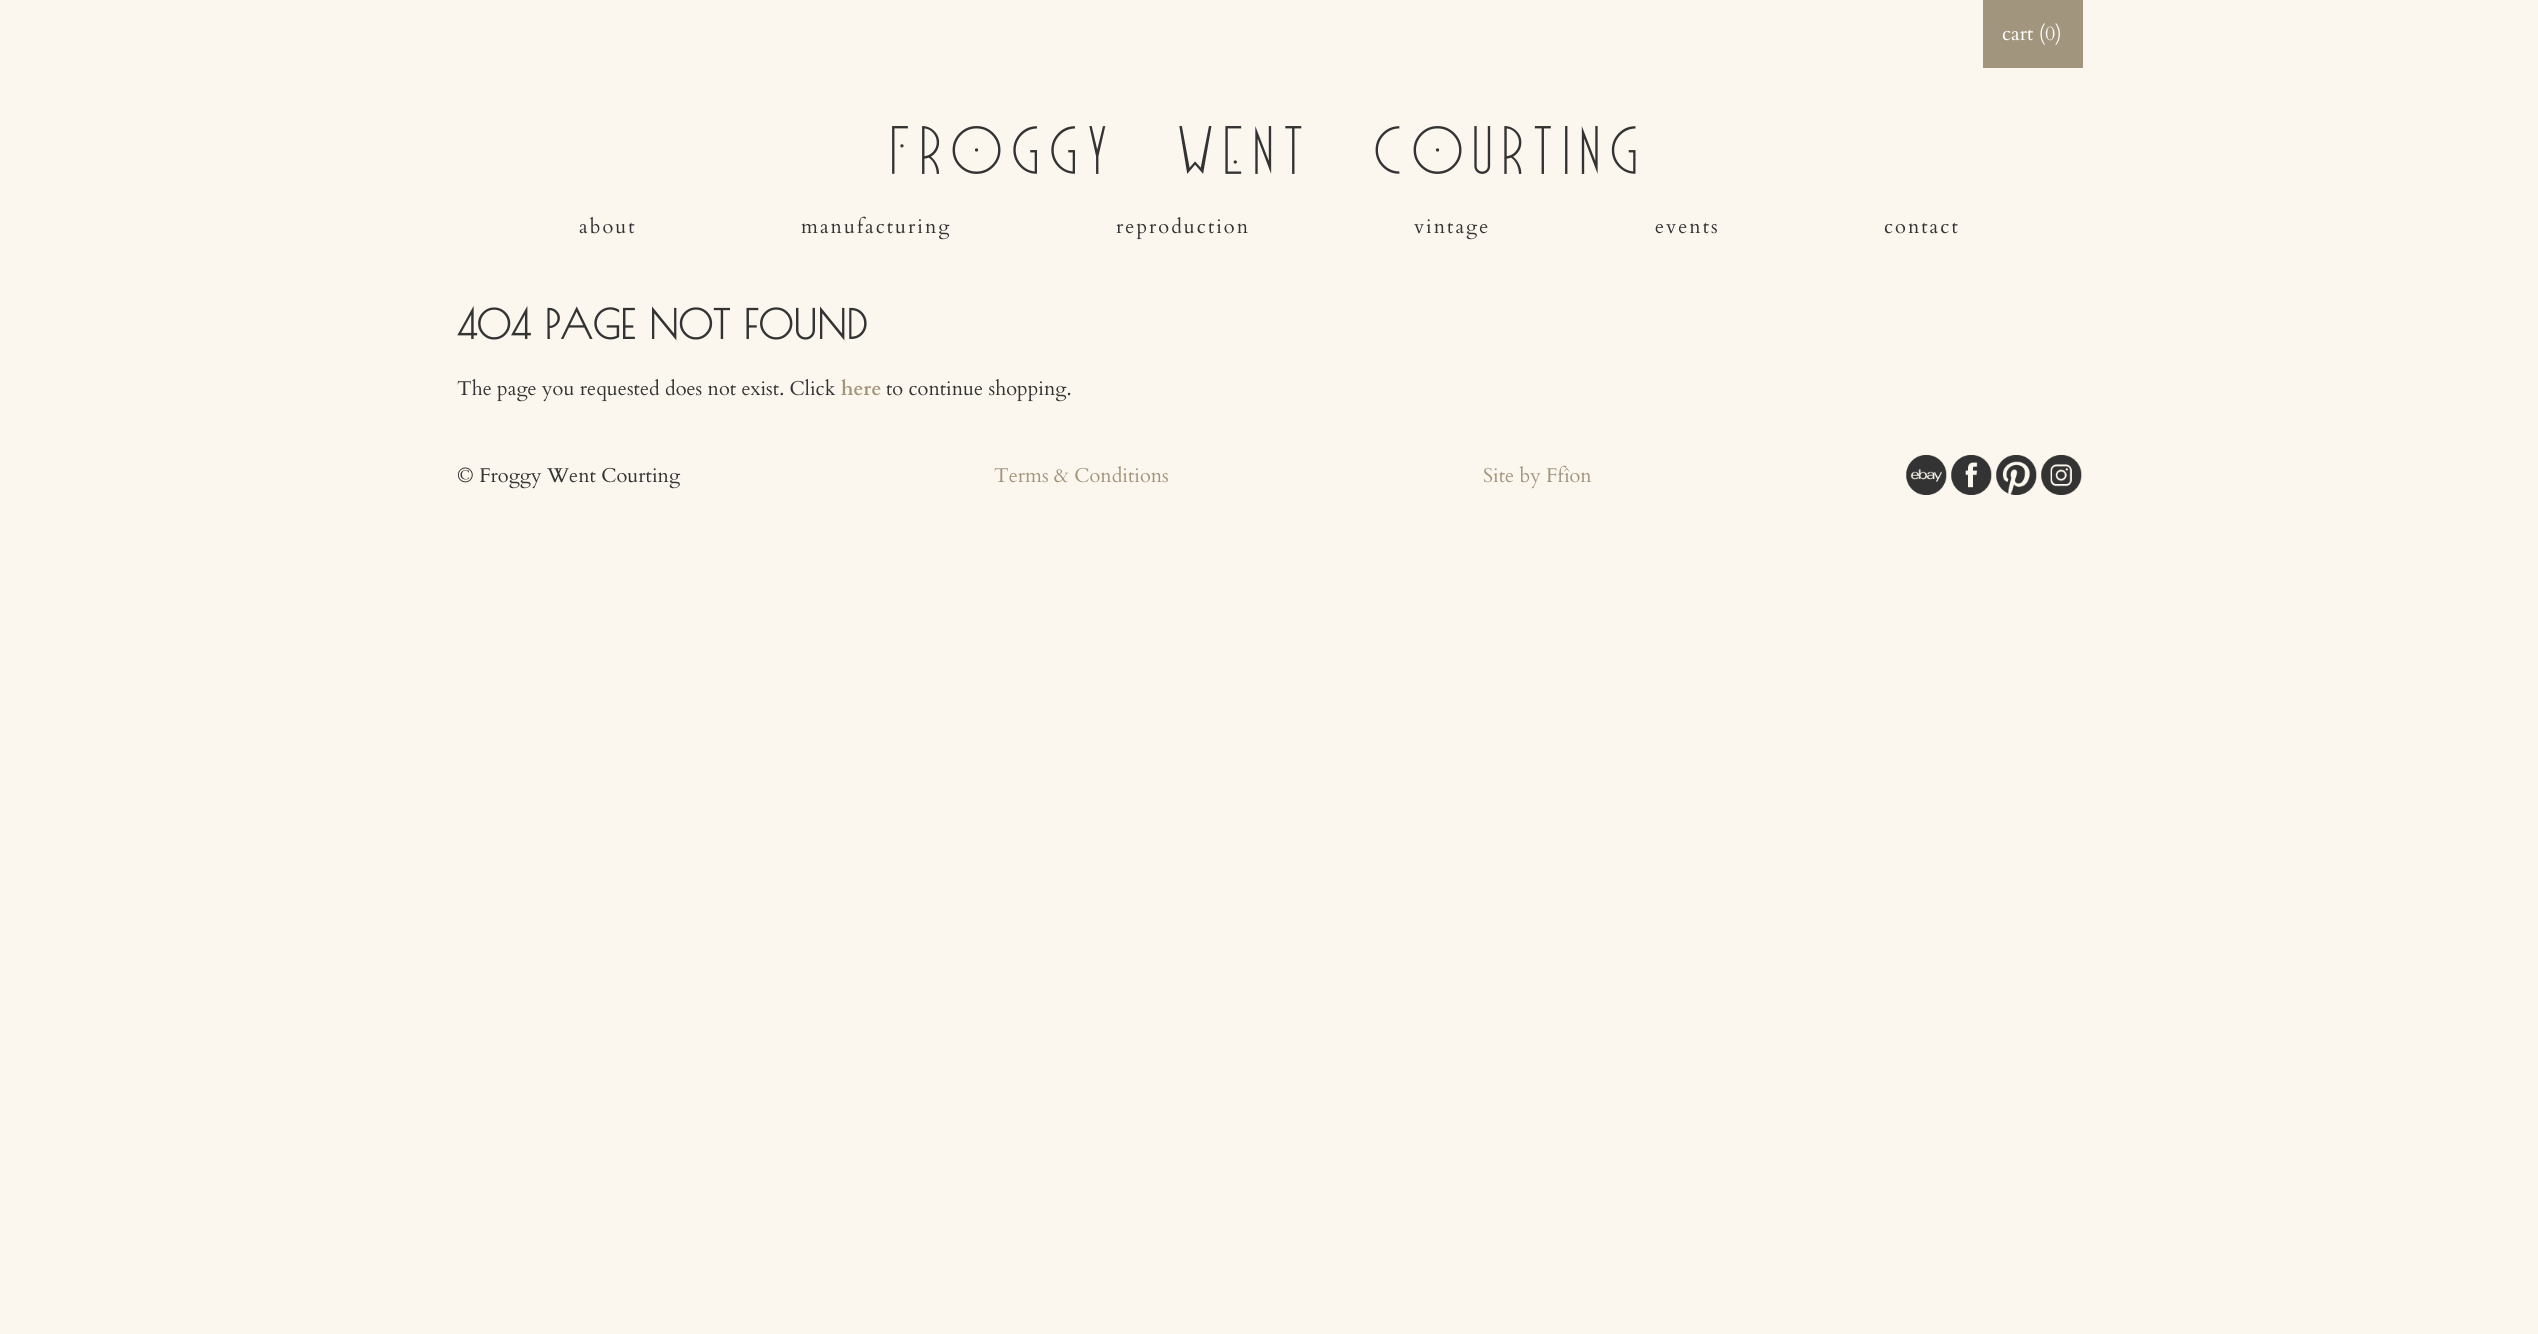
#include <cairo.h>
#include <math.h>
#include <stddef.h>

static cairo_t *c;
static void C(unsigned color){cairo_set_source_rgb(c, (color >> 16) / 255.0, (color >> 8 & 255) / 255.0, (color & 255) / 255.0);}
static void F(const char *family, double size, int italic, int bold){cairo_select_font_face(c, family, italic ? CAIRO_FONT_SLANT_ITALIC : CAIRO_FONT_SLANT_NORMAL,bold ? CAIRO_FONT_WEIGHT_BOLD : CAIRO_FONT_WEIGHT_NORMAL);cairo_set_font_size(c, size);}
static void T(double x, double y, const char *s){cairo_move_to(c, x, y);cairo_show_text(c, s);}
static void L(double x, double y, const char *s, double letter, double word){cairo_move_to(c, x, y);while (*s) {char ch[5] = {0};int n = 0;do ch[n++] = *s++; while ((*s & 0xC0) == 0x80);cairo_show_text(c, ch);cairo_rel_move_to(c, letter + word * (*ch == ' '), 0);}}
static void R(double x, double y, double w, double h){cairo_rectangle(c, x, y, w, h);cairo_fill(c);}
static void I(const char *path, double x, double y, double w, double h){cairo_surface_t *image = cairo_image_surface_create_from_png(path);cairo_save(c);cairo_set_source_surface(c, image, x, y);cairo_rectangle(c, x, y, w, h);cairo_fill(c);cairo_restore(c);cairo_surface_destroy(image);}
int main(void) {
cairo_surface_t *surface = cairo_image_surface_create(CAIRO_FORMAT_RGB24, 2538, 1334);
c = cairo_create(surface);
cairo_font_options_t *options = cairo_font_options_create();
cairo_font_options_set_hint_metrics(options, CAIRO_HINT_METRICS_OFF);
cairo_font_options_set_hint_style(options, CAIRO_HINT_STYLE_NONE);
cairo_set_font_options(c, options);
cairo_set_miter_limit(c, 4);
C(0xfbf7ee);
cairo_paint(c);
C(0xa2957d);
R(1983,0,100,68);
F("Cardo",20,0,0);
C(0xffffff);
T(2002,40,"cart (0)");
F("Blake",50,0,0);
C(0x333333);
L(890,176,"FROGGY WENT COURTING",10,0);
F("Cardo",20,0,0);
L(579,233,"about",2,0);
L(801,233,"manufacturing",2,0);
L(1116,233,"reproduction",2,0);
L(1414,233,"vintage",2,0);
L(1655,233,"events",2,0);
L(1884,233,"contact",2,0);
F("Poiret One",40,0,1);
T(457,339,"404 PAGE NOT FOUND");
F("Cardo",20,0,0);
T(457,395,"The page you requested does not exist. Click");
F("Cardo",20,0,1);
C(0xa2957d);
T(841,395,"here");
F("Cardo",20,0,0);
C(0x333333);
T(886,395,"to continue shopping.");
T(457,482,"© Froggy Went Courting");
C(0xa2957d);
T(994,482,"Terms & Conditions");
T(1483,482,"Site by Ffîon");
I("1.png",1906,455,41,40);
I("2.png",1951,455,41,40);
I("3.png",1996,455,41,40);
I("4.png",2041,455,41,40);
cairo_surface_write_to_png(surface, "o.png");
cairo_font_options_destroy(options);
cairo_destroy(c);
cairo_surface_destroy(surface);
return 0;
}
